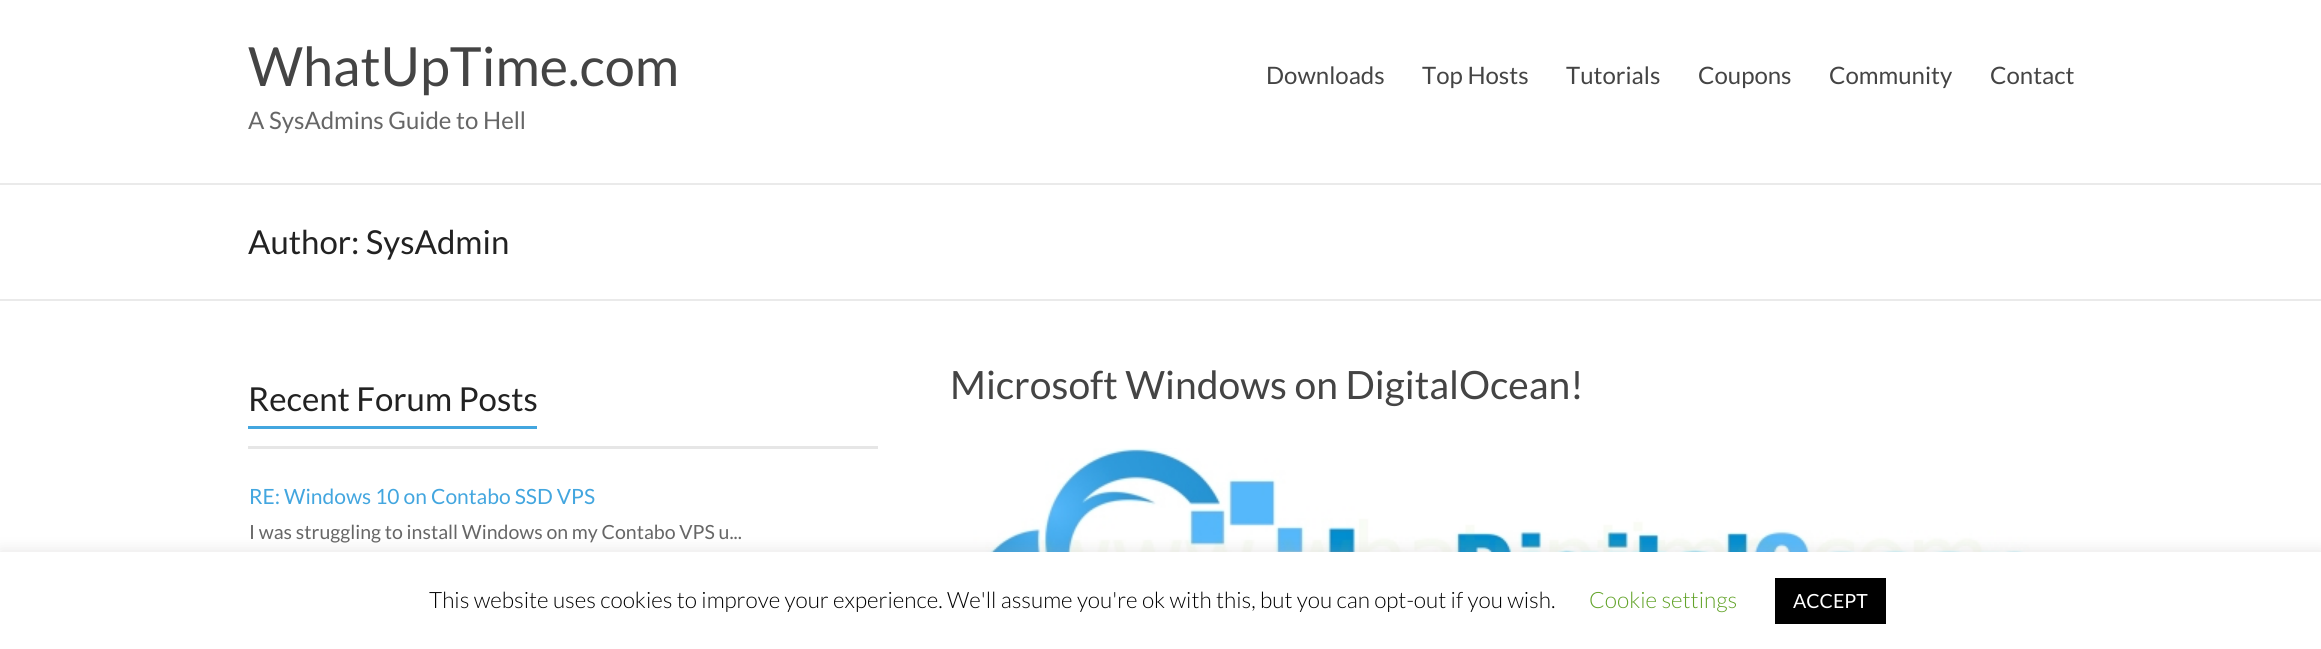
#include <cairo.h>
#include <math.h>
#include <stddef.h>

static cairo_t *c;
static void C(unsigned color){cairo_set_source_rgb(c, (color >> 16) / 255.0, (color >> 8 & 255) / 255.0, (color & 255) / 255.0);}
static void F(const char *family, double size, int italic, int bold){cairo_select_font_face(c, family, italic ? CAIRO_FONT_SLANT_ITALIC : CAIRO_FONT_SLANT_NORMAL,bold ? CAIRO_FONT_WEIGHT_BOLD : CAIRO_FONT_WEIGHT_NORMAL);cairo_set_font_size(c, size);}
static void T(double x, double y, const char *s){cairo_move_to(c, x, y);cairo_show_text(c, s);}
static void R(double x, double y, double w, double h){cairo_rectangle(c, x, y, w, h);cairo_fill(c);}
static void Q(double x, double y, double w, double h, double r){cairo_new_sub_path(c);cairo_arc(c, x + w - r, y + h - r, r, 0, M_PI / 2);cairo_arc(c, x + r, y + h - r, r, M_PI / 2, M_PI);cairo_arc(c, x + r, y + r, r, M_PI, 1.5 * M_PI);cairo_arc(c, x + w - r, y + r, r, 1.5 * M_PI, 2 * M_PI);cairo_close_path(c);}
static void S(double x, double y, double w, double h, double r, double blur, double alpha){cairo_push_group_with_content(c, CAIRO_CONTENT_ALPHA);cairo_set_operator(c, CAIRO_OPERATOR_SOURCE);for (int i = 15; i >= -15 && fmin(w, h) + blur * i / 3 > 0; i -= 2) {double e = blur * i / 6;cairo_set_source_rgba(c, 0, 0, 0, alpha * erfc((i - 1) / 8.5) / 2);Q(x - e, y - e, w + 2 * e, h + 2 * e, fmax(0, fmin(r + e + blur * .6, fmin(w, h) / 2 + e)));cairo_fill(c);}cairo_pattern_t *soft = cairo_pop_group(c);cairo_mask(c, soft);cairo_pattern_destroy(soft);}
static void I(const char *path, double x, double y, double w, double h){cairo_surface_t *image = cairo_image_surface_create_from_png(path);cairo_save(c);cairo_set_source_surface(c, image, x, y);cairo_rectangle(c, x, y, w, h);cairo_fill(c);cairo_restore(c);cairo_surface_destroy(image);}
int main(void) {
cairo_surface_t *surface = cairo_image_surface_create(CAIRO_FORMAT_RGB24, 2321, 649);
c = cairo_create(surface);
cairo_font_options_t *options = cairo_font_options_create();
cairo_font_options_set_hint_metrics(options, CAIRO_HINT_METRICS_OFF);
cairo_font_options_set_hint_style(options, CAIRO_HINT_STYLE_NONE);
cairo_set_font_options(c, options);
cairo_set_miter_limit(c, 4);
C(0xffffff);
cairo_paint(c);
C(0xeaeaea);
R(0,183,2321,2);
F("Lato",54,0,0);
C(0x444444);
T(248,86,"WhatUpTime.com");
F("Lato",24,0,0);
C(0x666666);
T(248,129,"A SysAdmins Guide to Hell");
C(0x444444);
T(1266,84,"Downloads");
T(1422,84,"Top Hosts");
T(1566,84,"Tutorials");
T(1698,84,"Coupons");
T(1829,84,"Community");
T(1990,84,"Contact");
C(0xeaeaea);
R(0,299,2321,2);
F("Lato",33,0,0);
C(0x222222);
T(248,254,"Author: SysAdmin");
C(0xe6e6e6);
R(248,446,630,3);
C(0x222222);
T(248,411,"Recent Forum Posts");
C(0x43a6df);
R(248,426,289,3);
F("Lato",21,0,0);
T(249,504,"RE: Windows 10 on Contabo SSD VPS");
F("Lato",19.5,0,0);
C(0x666666);
T(249,539,"I was struggling to install Windows on my Contabo VPS u...");
F("Lato",39,0,0);
C(0x444444);
T(950,399,"Microsoft Windows on DigitalOcean!");
I("1.png",972,448,1059,104);
C(0xacabab);
S(0,551,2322,97,0,7.5,.3);
C(0xffffff);
R(0,552,2321,97);
F("Lato Light",22.5,0,0);
C(0x000000);
T(429,608,"This website uses cookies to improve your experience. We'll assume you're ok with this, but you can opt-out if you wish.");
C(0x62a329);
T(1589,608,"Cookie settings");
C(0x000000);
R(1775,578,111,46);
F("Lato",19.5,0,0);
C(0xffffff);
T(1793,608,"ACCEPT");
cairo_surface_write_to_png(surface, "o.png");
cairo_font_options_destroy(options);
cairo_destroy(c);
cairo_surface_destroy(surface);
return 0;
}
